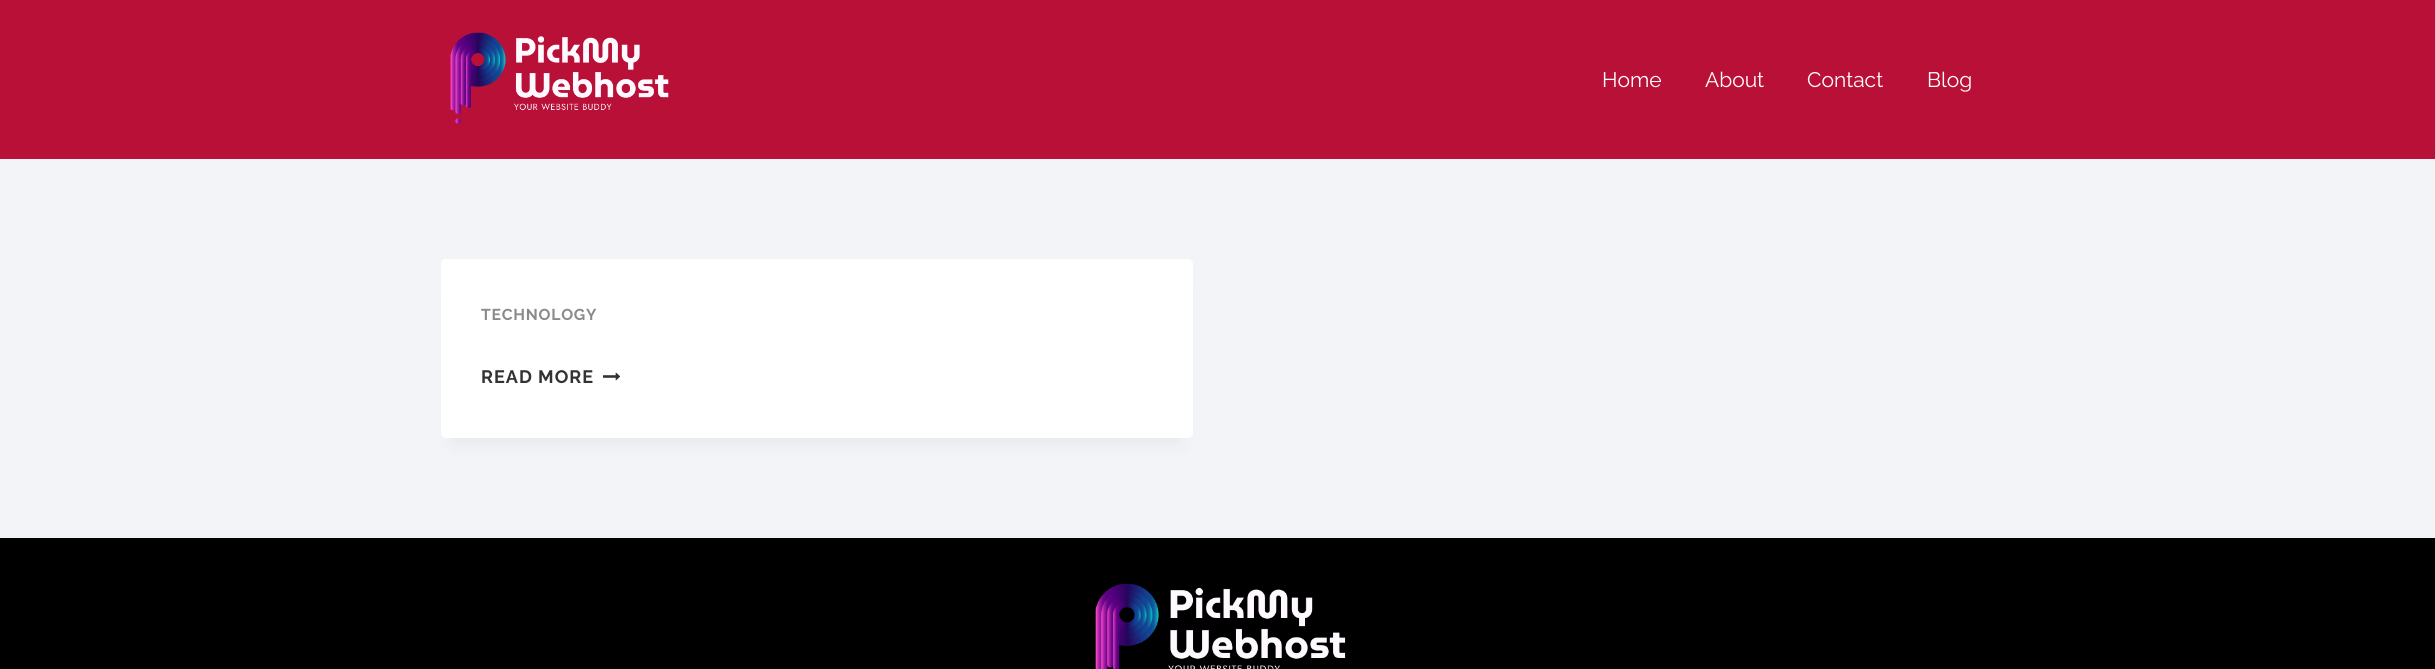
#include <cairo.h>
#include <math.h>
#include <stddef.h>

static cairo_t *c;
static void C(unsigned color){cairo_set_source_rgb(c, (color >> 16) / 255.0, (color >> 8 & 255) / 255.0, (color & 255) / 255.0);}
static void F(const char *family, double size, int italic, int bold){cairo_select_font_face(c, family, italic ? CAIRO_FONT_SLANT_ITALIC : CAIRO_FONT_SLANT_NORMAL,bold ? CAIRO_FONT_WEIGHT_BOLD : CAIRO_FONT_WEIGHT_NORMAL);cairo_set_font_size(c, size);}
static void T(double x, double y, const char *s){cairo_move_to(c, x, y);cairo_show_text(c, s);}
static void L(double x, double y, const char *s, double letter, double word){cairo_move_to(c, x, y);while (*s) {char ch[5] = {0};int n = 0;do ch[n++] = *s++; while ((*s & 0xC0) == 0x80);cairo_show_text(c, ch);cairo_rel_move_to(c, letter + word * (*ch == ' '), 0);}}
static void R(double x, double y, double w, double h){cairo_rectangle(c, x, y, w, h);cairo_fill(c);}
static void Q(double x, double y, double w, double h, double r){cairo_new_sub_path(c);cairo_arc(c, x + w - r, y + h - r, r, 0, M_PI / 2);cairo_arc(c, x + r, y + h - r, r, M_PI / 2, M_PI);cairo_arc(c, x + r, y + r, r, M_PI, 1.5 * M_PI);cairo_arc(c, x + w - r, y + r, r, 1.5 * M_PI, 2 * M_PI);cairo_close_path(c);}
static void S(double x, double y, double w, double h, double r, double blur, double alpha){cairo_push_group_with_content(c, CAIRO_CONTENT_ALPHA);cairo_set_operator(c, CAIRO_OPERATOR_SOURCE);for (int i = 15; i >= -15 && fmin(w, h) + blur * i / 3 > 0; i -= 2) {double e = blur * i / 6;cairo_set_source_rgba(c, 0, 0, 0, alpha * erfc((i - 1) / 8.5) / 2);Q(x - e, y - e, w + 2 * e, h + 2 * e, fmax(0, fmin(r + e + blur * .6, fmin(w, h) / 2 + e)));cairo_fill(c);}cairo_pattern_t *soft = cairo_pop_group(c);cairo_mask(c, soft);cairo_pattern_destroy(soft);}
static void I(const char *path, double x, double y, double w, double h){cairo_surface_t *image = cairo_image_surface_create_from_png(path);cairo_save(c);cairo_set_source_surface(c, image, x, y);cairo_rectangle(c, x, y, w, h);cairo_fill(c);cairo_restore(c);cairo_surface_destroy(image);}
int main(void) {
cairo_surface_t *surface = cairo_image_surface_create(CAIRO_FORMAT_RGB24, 2435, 669);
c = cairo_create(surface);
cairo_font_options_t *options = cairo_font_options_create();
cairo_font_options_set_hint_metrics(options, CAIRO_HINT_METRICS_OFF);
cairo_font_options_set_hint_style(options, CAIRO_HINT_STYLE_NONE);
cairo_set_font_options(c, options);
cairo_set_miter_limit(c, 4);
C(0xf3f4f8);
cairo_paint(c);
C(0xb91037);
R(0,0,2435,159);
I("1.png",450,32,219,92);
F("Raleway",21,0,0);
C(0xffffff);
T(1602,87,"Home");
T(1705,87,"About");
T(1807,87,"Contact");
T(1927,87,"Blog");
C(0x000000);
S(454,290,726,154,0,9.5,.05);
C(0xffffff);
Q(441,259,752,179,5);
cairo_fill(c);
F("Raleway",15.75,0,1);
C(0x8c8b8c);
L(481,320,"TECHNOLOGY",.75,0);
F("Raleway",18,0,1);
C(0x323335);
L(481,383,"READ MORE",1,0);
I("2.png",603,372,17,9);
C(0x000000);
R(0,538,2435,131);
I("3.png",1095,583,251,86);
cairo_surface_write_to_png(surface, "o.png");
cairo_font_options_destroy(options);
cairo_destroy(c);
cairo_surface_destroy(surface);
return 0;
}
